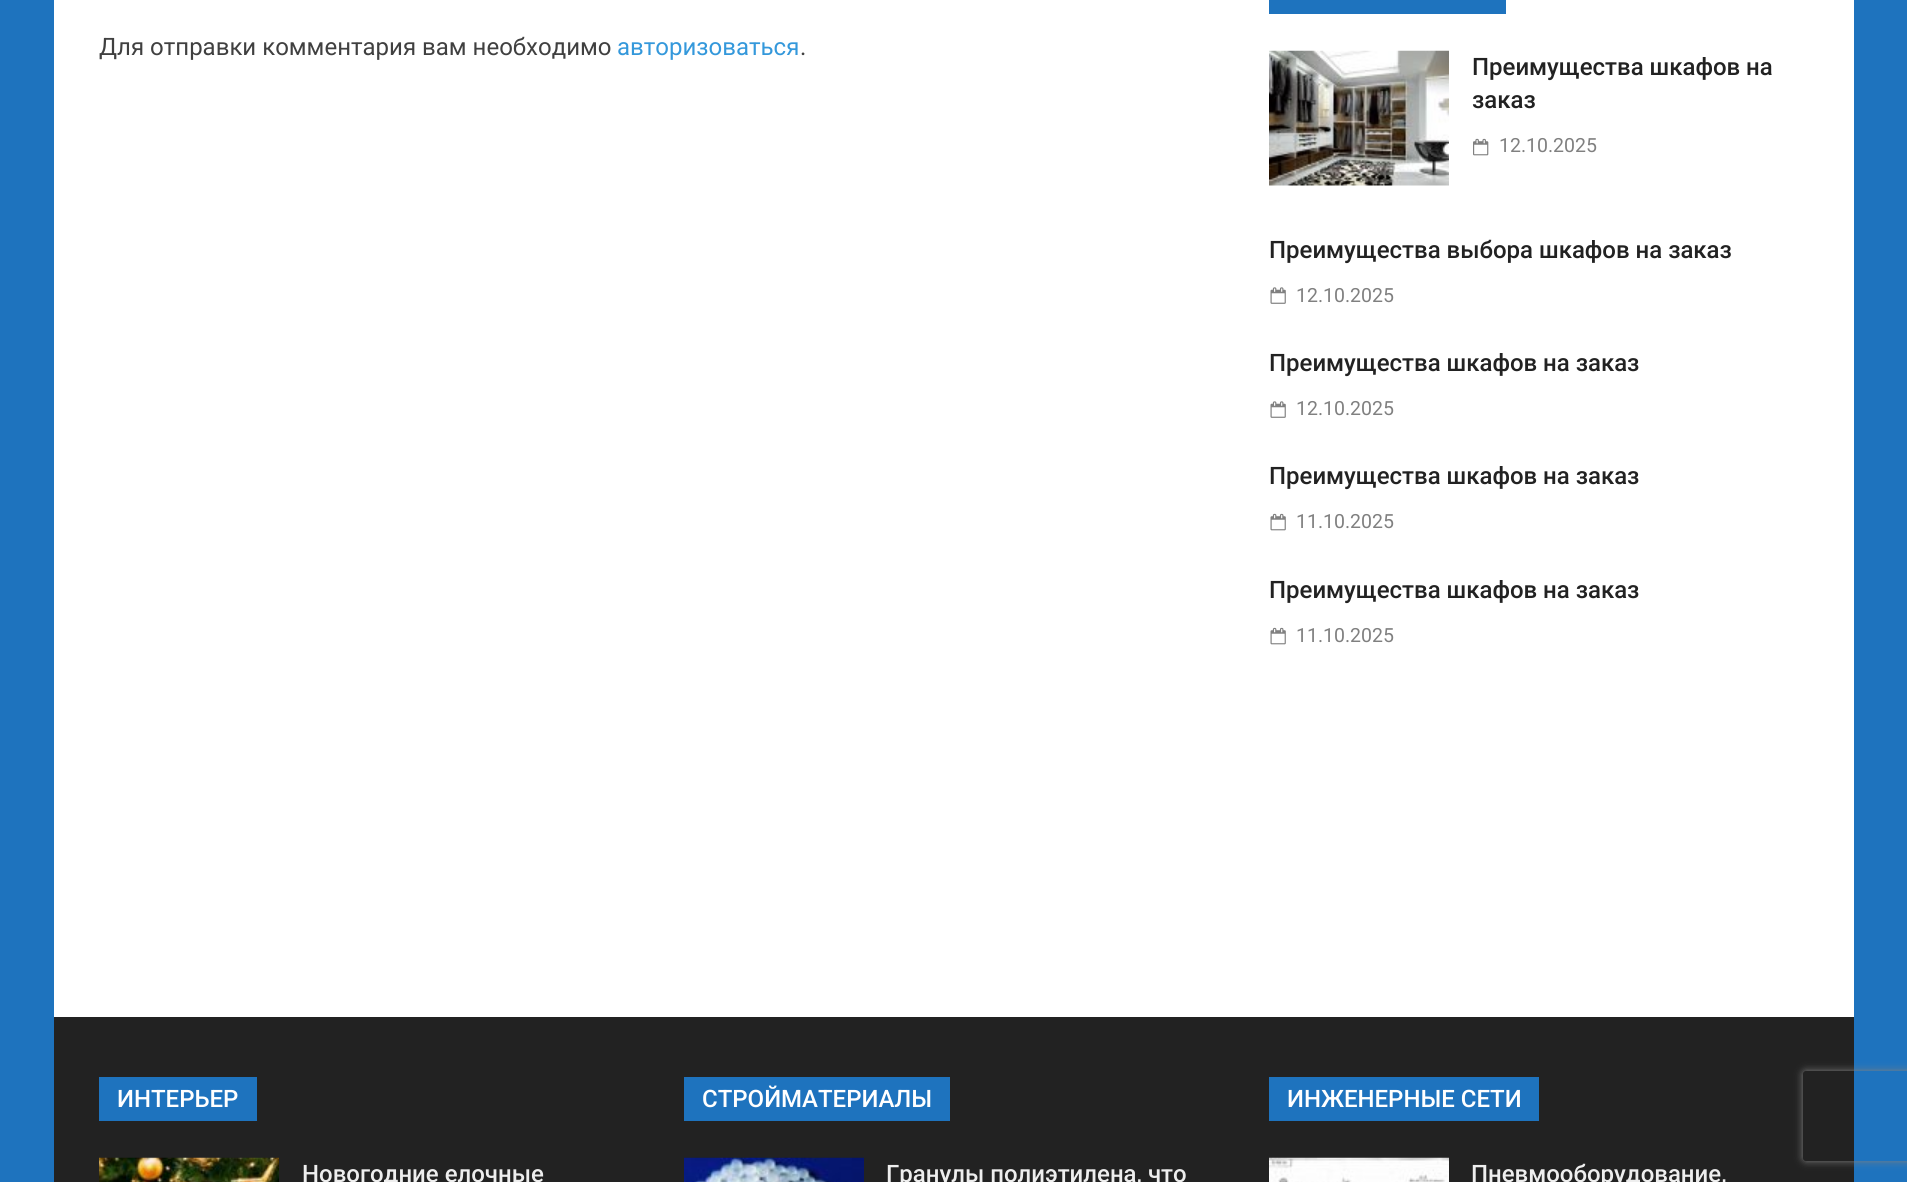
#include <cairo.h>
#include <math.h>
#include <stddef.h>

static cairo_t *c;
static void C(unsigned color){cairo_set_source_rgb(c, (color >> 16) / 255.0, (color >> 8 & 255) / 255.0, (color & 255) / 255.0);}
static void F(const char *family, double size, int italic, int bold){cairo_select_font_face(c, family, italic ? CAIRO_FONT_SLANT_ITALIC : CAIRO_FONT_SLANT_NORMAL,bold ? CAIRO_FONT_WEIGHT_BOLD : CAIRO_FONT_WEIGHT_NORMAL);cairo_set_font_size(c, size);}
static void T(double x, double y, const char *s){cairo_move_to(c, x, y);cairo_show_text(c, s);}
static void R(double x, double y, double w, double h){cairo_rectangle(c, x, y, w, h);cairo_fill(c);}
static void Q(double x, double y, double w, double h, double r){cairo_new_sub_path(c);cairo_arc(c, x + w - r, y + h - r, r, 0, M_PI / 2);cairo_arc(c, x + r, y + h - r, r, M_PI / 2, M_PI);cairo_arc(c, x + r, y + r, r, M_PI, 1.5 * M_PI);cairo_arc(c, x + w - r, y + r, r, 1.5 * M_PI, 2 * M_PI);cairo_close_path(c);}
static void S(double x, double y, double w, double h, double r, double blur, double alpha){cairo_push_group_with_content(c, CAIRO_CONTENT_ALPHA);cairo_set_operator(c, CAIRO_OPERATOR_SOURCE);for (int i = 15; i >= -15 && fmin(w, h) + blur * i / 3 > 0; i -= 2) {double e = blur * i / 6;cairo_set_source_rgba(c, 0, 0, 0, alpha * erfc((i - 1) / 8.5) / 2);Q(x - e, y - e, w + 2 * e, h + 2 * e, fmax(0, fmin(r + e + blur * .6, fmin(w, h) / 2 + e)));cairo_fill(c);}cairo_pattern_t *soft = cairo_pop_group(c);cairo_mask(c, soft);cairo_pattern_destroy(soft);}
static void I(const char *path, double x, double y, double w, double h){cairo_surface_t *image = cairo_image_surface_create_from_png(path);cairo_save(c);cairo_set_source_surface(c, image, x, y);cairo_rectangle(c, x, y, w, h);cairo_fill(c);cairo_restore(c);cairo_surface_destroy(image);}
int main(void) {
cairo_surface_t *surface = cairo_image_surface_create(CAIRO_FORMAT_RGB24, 1907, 1182);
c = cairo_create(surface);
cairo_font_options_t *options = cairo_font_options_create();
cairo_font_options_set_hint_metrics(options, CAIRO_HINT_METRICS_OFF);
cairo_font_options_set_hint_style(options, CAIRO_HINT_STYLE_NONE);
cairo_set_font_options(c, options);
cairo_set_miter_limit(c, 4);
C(0x1e73be);
cairo_paint(c);
C(0xffffff);
R(54,0,1800,1017);
F("Roboto",24,0,0);
C(0x404040);
T(99,55,"Для отправки комментария вам необходимо");
C(0x3498db);
T(617,55,"авторизоваться");
C(0x404040);
T(800,55,".");
C(0x1e73be);
R(1269,0,237,14);
I("1.png",1269,50,180,136);
F("Roboto Medium",24,0,0);
C(0x222222);
T(1472,75,"Преимущества шкафов на");
T(1472,108,"заказ");
I("2.png",1473,138,16,18);
F("Roboto",19.5,0,0);
C(0x808080);
T(1499,152,"12.10.2025");
F("Roboto Medium",24,0,0);
C(0x222222);
T(1269,258,"Преимущества выбора шкафов на заказ");
I("3.png",1270,287,16,17);
F("Roboto",19.5,0,0);
C(0x808080);
T(1296,302,"12.10.2025");
F("Roboto Medium",24,0,0);
C(0x222222);
T(1269,371,"Преимущества шкафов на заказ");
I("3.png",1270,401,16,17);
F("Roboto",19.5,0,0);
C(0x808080);
T(1296,415,"12.10.2025");
F("Roboto Medium",24,0,0);
C(0x222222);
T(1269,484,"Преимущества шкафов на заказ");
I("4.png",1270,513,16,18);
F("Roboto",19.5,0,0);
C(0x808080);
T(1296,528,"11.10.2025");
F("Roboto Medium",24,0,0);
C(0x222222);
T(1269,598,"Преимущества шкафов на заказ");
I("4.png",1270,627,16,18);
F("Roboto",19.5,0,0);
C(0x808080);
T(1296,642,"11.10.2025");
C(0x222222);
R(54,1017,1800,165);
C(0x1e73be);
R(99,1077,158,44);
F("Roboto Medium",24,0,0);
C(0xffffff);
T(117,1107,"ИНТЕРЬЕР");
I("5.png",99,1157,180,25);
C(0xeeeeee);
T(302,1182,"Новогодние елочные");
C(0x1e73be);
R(684,1077,266,44);
C(0xffffff);
T(702,1107,"СТРОЙМАТЕРИАЛЫ");
I("6.png",684,1157,180,25);
C(0xeeeeee);
T(886,1182,"Гранулы полиэтилена, что");
C(0x1e73be);
R(1269,1077,270,44);
C(0xffffff);
T(1287,1107,"ИНЖЕНЕРНЫЕ СЕТИ");
I("7.png",1269,1157,180,25);
C(0xeeeeee);
T(1471,1182,"Пневмооборудование,");
cairo_save(c);
cairo_set_fill_rule(c,CAIRO_FILL_RULE_EVEN_ODD);
cairo_new_path(c);
cairo_move_to(c,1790,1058);
cairo_line_to(c,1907,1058);
cairo_line_to(c,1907,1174);
cairo_line_to(c,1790,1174);
cairo_close_path(c);
cairo_move_to(c,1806,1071);
cairo_line_to(c,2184,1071);
cairo_curve_to(c,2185.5,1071,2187,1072.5,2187,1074);
cairo_line_to(c,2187,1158);
cairo_curve_to(c,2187,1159.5,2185.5,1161,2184,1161);
cairo_line_to(c,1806,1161);
cairo_curve_to(c,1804.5,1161,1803,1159.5,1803,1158);
cairo_line_to(c,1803,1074);
cairo_curve_to(c,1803,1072.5,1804.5,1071,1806,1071);
cairo_close_path(c);
cairo_clip(c);
C(0x808080);
S(1803,1071,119,90,3,4,1);
cairo_restore(c);
cairo_surface_write_to_png(surface, "o.png");
cairo_font_options_destroy(options);
cairo_destroy(c);
cairo_surface_destroy(surface);
return 0;
}
